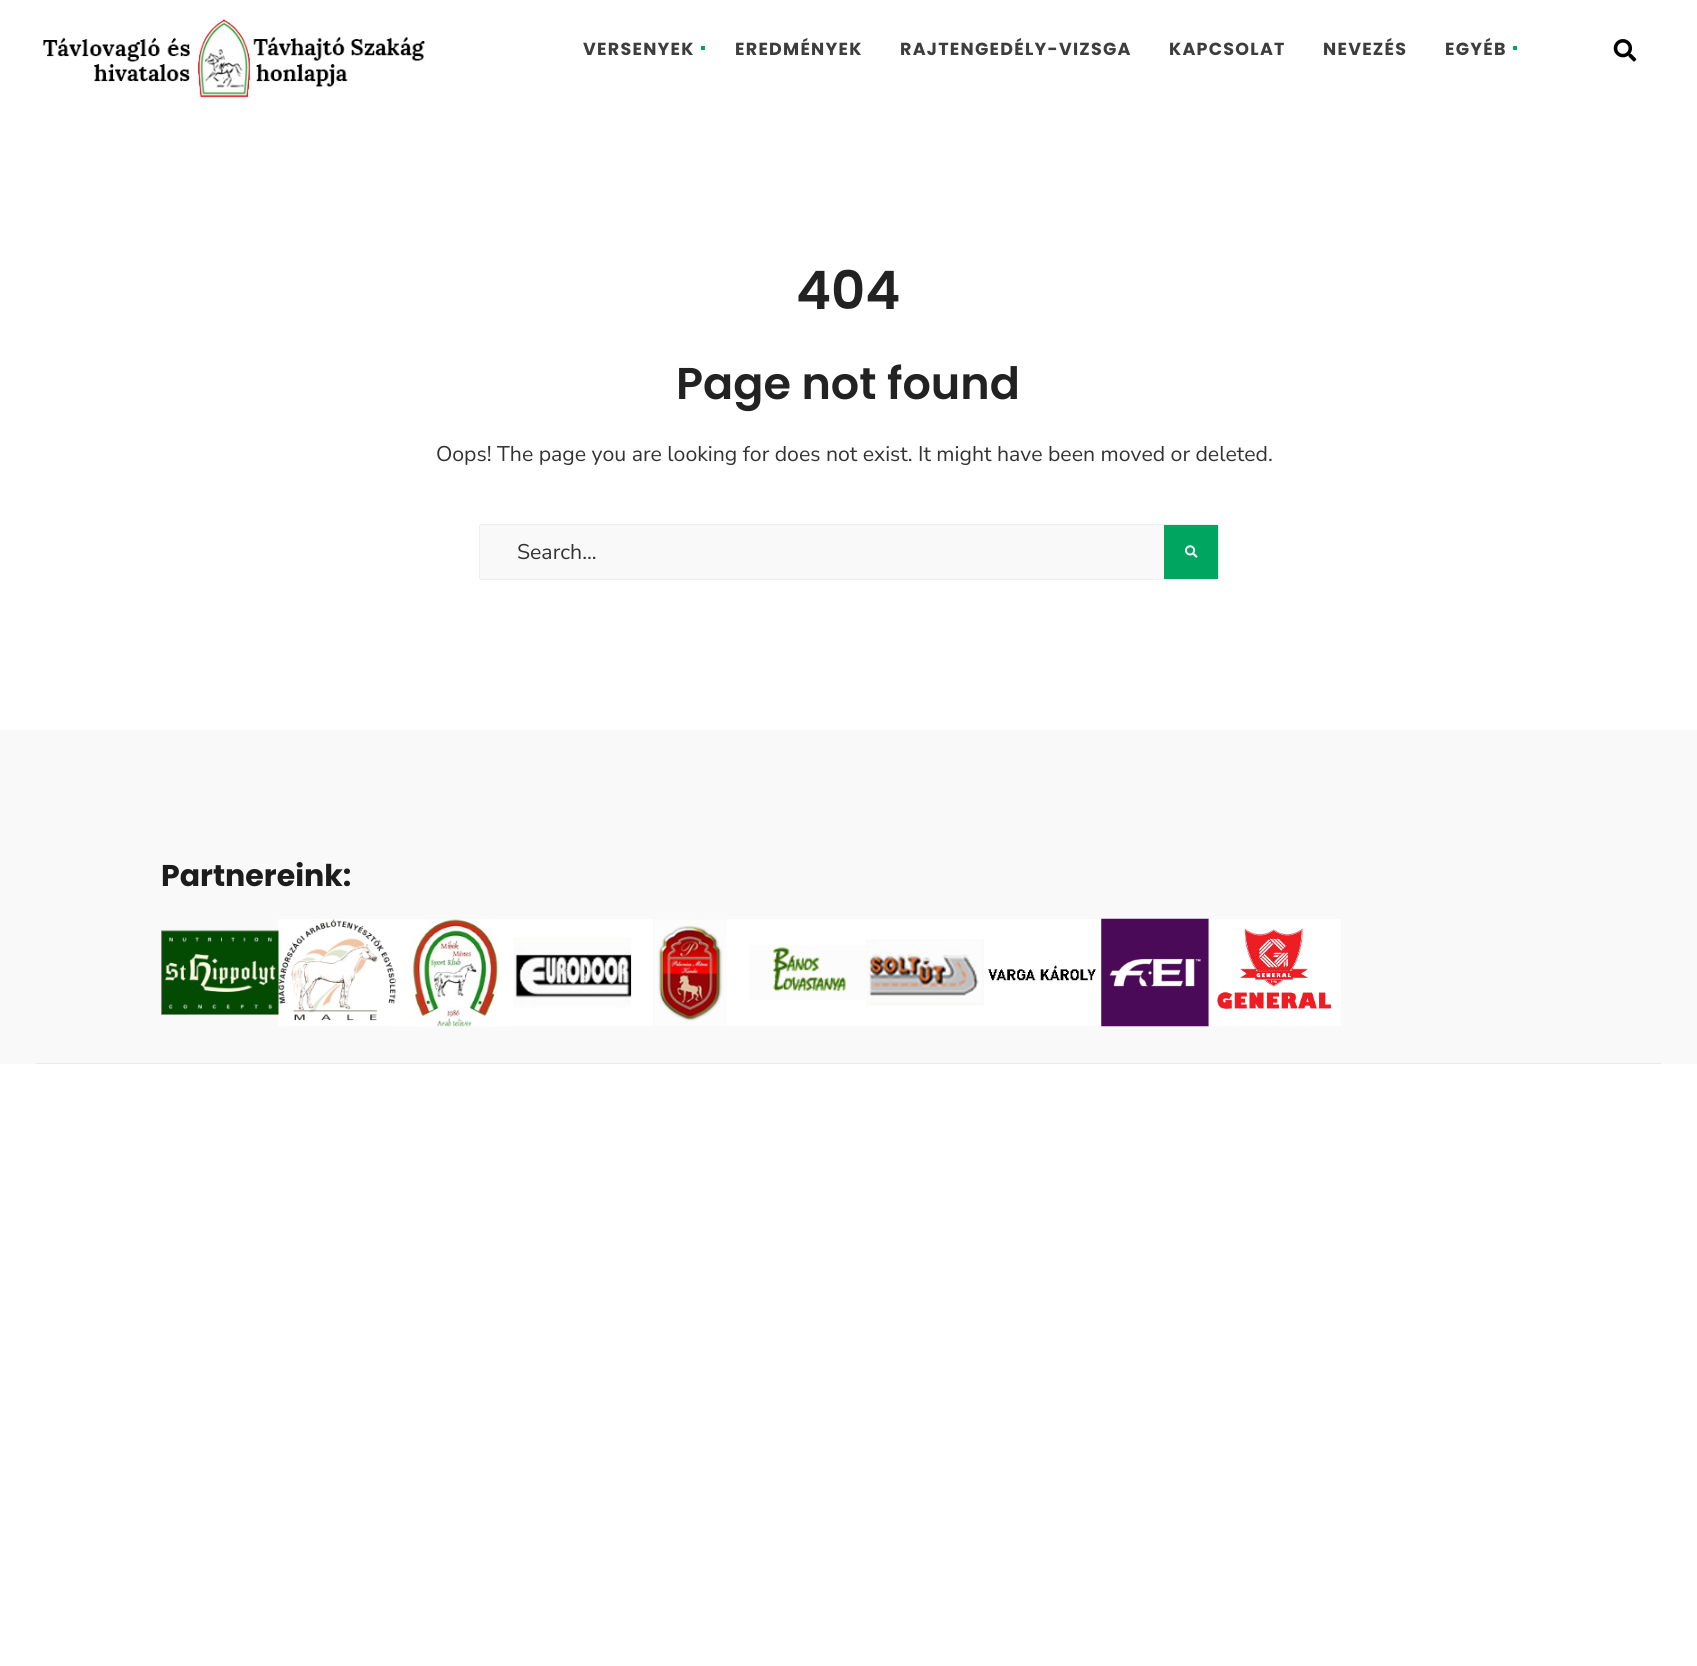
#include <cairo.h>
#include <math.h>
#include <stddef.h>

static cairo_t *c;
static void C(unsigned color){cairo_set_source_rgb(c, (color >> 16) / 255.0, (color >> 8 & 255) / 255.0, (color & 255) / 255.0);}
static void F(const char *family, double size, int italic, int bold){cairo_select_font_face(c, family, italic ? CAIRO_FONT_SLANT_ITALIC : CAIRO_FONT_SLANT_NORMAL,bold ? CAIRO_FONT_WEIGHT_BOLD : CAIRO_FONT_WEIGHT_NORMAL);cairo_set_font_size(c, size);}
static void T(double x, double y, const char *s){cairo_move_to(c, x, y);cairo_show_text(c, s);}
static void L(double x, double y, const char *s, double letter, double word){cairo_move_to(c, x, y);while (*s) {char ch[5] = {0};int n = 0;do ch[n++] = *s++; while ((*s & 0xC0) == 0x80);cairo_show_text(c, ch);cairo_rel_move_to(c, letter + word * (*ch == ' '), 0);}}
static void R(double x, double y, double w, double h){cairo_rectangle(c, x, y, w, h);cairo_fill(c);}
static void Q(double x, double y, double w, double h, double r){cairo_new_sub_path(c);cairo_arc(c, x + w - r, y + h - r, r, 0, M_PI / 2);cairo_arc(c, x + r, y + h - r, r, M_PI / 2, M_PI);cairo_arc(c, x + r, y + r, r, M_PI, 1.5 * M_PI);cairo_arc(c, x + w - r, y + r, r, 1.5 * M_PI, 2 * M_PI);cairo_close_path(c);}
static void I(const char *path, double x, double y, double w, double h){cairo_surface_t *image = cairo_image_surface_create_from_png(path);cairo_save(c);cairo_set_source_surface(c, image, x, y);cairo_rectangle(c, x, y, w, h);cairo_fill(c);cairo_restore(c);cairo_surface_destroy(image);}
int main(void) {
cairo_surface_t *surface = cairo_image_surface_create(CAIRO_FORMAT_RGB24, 1697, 1666);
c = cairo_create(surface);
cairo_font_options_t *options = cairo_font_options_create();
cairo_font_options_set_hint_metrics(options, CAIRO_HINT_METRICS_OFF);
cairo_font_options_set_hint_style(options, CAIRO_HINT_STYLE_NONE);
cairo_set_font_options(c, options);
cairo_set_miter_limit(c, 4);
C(0xffffff);
cairo_paint(c);
I("1.png",42,19,383,79);
F("Poppins",17.5,0,1);
C(0x3d3d3d);
L(583,55,"VERSENYEK",1.25,0);
C(0x00a560);
R(701,46,4,4);
C(0x3d3d3d);
L(735,55,"EREDMÉNYEK",1.25,0);
L(900,55,"RAJTENGEDÉLY-VIZSGA",1.25,0);
L(1169,55,"KAPCSOLAT",1.25,0);
L(1323,55,"NEVEZÉS",1.25,0);
L(1445,55,"EGYÉB",1.25,0);
C(0x00a560);
R(1513,46,4,4);
I("2.png",1613,39,24,23);
F("Poppins SemiBold",53,0,0);
C(0x222222);
T(796,309,"404");
F("Poppins SemiBold",44.5,0,0);
T(676,399,"Page not found");
F("Nunito Sans",21.25,0,0);
C(0x333333);
T(436,461,"Oops! The page you are looking for does not exist. It might have been moved or deleted.");
C(0xf9f9f9);
Q(479.5,524.5,739,55,2);
cairo_fill_preserve(c);
C(0xefefef);
cairo_set_line_width(c,1);
cairo_stroke(c);
C(0x333333);
T(517,559,"Search...");
C(0x00a560);
R(1164,525,54,54);
I("3.png",1185,545,13,13);
C(0xf9f9f9);
R(0,730,1697,334);
F("Poppins",30,0,1);
C(0x1c1c1c);
T(161,886,"Partnereink:");
I("4.png",161,930,118,85);
I("5.png",278,919,119,107);
I("6.png",396,919,118,108);
I("7.png",514,919,118,107);
I("8.png",631,919,118,107);
I("9.png",749,919,117,107);
I("10.png",866,919,118,107);
I("11.png",984,919,117,107);
I("12.png",1101,918,108,109);
I("13.png",1208,919,133,107);
C(0xeaeaea);
R(36,1063,1625,1);
cairo_surface_write_to_png(surface, "o.png");
cairo_font_options_destroy(options);
cairo_destroy(c);
cairo_surface_destroy(surface);
return 0;
}
